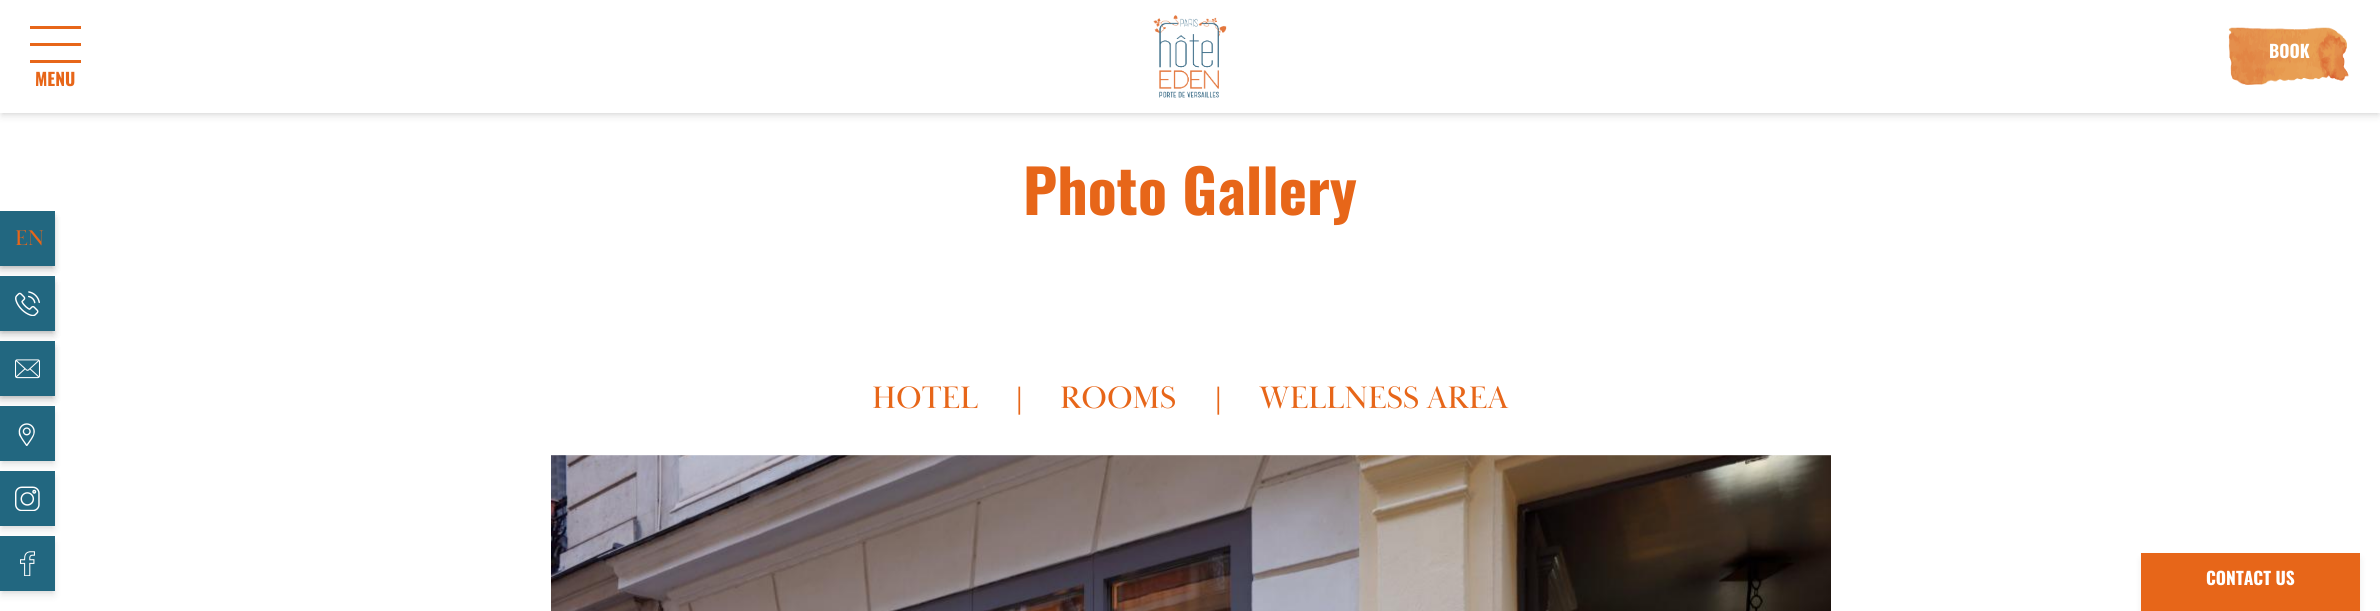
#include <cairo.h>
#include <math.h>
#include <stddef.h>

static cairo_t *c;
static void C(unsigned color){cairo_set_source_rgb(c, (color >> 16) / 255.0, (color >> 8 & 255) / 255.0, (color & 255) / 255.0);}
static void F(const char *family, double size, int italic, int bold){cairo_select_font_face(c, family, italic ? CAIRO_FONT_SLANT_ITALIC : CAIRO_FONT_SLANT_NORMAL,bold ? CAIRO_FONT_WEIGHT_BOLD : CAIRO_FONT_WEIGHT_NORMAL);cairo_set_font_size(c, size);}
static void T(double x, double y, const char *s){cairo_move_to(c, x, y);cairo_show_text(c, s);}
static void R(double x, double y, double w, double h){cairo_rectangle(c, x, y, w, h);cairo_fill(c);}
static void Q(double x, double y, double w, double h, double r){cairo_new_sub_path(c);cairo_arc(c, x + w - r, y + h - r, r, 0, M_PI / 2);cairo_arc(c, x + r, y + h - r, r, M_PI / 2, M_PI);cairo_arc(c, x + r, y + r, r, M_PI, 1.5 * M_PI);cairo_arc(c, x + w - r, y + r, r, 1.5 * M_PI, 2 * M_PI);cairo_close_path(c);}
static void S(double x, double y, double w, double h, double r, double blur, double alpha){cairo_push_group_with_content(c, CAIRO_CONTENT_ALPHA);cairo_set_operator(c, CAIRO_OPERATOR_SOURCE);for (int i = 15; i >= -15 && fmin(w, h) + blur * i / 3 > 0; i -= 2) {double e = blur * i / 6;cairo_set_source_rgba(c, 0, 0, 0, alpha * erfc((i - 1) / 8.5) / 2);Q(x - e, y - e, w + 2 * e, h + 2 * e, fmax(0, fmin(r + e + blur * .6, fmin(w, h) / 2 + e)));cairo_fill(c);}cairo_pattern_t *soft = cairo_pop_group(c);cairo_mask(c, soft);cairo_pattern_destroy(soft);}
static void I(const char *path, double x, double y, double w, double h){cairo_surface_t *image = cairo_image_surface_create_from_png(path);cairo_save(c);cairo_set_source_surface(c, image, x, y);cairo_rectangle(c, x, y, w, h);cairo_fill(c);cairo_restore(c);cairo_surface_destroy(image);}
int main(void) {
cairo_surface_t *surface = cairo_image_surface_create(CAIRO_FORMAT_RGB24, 2380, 611);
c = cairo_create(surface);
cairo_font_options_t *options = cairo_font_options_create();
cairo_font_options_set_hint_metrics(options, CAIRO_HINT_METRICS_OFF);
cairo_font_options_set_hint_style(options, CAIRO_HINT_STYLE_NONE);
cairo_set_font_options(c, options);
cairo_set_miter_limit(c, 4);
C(0xffffff);
cairo_paint(c);
C(0x000000);
S(3,5,2375,108,0,2.5,.1);
S(1,6,2378,110,0,4,.1);
C(0xffffff);
R(0,0,2380,113);
I("1.png",1153,15,74,83);
I("2.png",2228,27,121,58);
F("Oswald",17.5,0,1);
T(2269,58,"BOOK");
C(0xe76619);
R(30,26,51,3);
R(30,43,51,3);
R(30,60,51,3);
T(35,86,"MENU");
C(0x000000);
S(-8,216,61,50,0,2.5,.1);
S(-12,218,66,52,0,4,.1);
S(3,216,50,50,0,2.5,.1);
S(1,218,53,52,0,4,.1);
C(0x226780);
R(0,211,55,55);
F("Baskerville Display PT",22,0,0);
C(0xe76619);
T(15,245,"EN");
C(0x000000);
S(-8,281,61,50,0,2.5,.1);
S(-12,283,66,52,0,4,.1);
S(3,281,50,50,0,2.5,.1);
S(1,283,53,52,0,4,.1);
C(0x226780);
R(0,276,55,55);
I("3.png",15,291,25,25);
C(0x000000);
S(-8,346,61,50,0,2.5,.1);
S(-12,348,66,52,0,4,.1);
S(3,346,50,50,0,2.5,.1);
S(1,348,53,52,0,4,.1);
C(0x226780);
R(0,341,55,55);
I("4.png",15,359,25,20);
C(0x000000);
S(3,411,50,50,0,2.5,.1);
S(1,413,53,52,0,4,.1);
C(0x226780);
R(0,406,55,55);
I("5.png",18,423,17,23);
C(0x000000);
S(3,476,50,50,0,2.5,.1);
S(1,478,53,52,0,4,.1);
C(0x226780);
R(0,471,55,55);
I("6.png",15,486,25,25);
C(0x000000);
S(3,541,50,50,0,2.5,.1);
S(1,543,53,52,0,4,.1);
C(0x226780);
R(0,536,55,55);
I("7.png",20,551,15,25);
F("Oswald",60,0,1);
C(0xe76619);
T(1023,215,"Photo Gallery");
F("Baskerville Display PT",32,0,0);
T(872,408,"HOTEL");
T(1013,408,"|");
T(1060,408,"ROOMS");
T(1212,408,"|");
T(1259,408,"WELLNESS AREA");
I("8.png",551,455,1280,156);
C(0x000000);
S(2143,559,216,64,0,4,.1);
C(0xe76619);
R(2141,553,219,58);
F("Oswald",17.5,0,1);
C(0xffffff);
T(2206,585,"CONTACT US");
cairo_surface_write_to_png(surface, "o.png");
cairo_font_options_destroy(options);
cairo_destroy(c);
cairo_surface_destroy(surface);
return 0;
}
